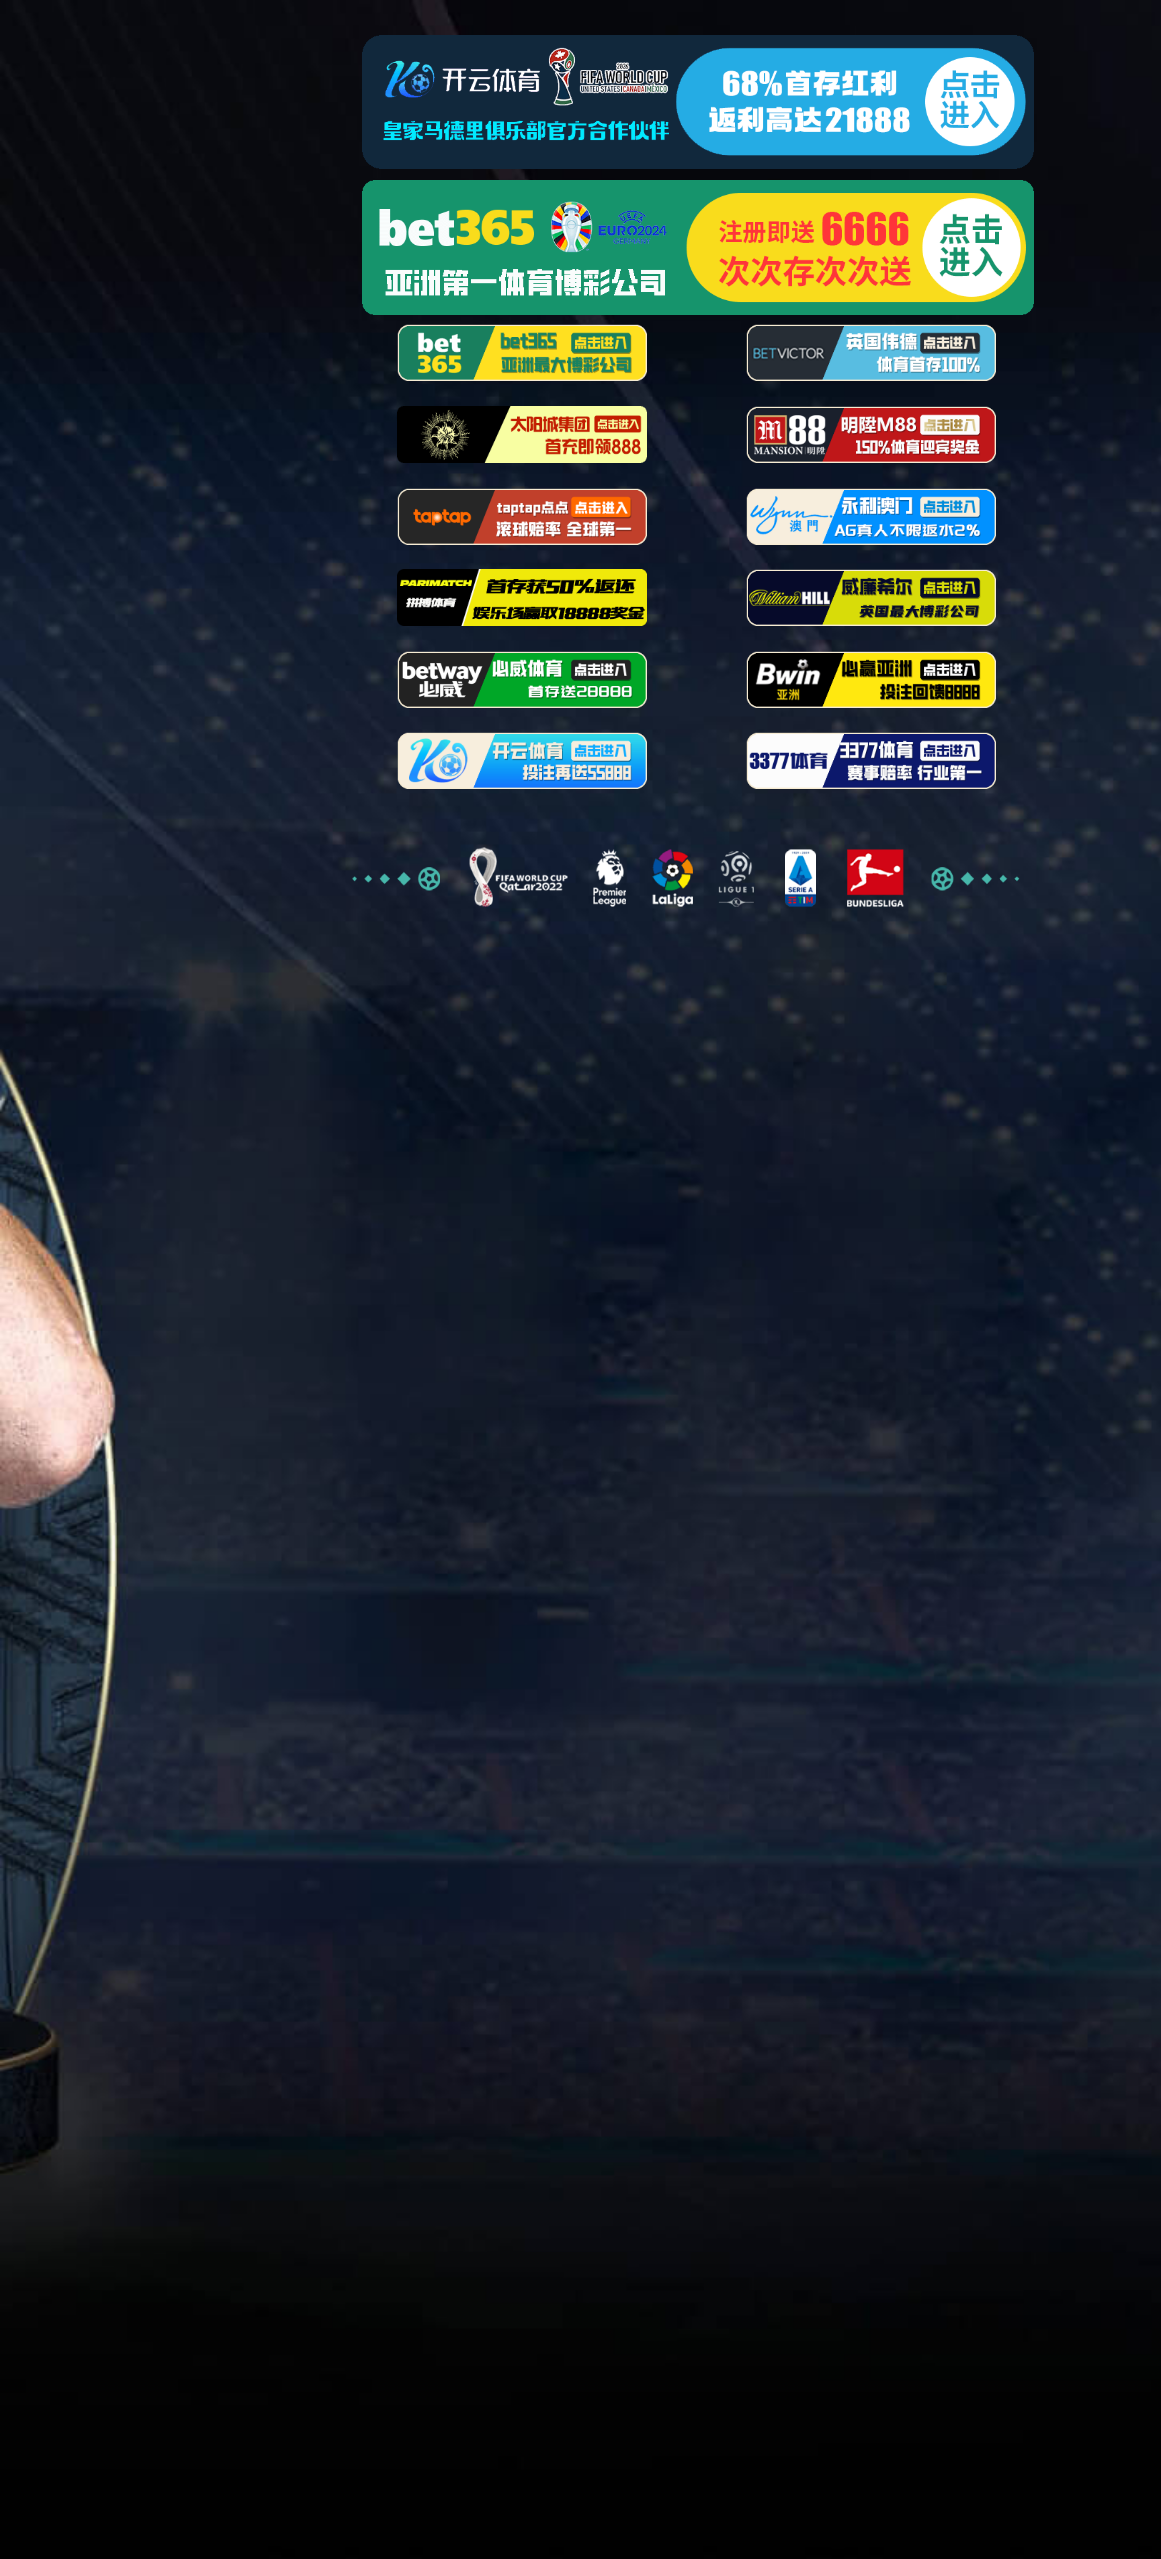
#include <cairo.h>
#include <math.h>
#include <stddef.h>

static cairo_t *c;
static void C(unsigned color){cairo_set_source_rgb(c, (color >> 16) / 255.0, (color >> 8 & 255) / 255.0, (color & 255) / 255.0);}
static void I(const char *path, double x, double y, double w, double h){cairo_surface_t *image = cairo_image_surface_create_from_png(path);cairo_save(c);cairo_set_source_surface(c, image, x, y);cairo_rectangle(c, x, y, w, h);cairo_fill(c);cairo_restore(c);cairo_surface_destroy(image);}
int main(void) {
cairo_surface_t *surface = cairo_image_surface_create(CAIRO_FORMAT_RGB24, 1161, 2559);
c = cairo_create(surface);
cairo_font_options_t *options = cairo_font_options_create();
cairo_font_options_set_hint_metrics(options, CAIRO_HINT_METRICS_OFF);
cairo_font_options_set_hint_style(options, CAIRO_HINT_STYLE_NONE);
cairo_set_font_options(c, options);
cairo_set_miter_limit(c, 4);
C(0xffffff);
cairo_paint(c);
I("1.png",0,0,1161,2559);
cairo_surface_write_to_png(surface, "o.png");
cairo_font_options_destroy(options);
cairo_destroy(c);
cairo_surface_destroy(surface);
return 0;
}
